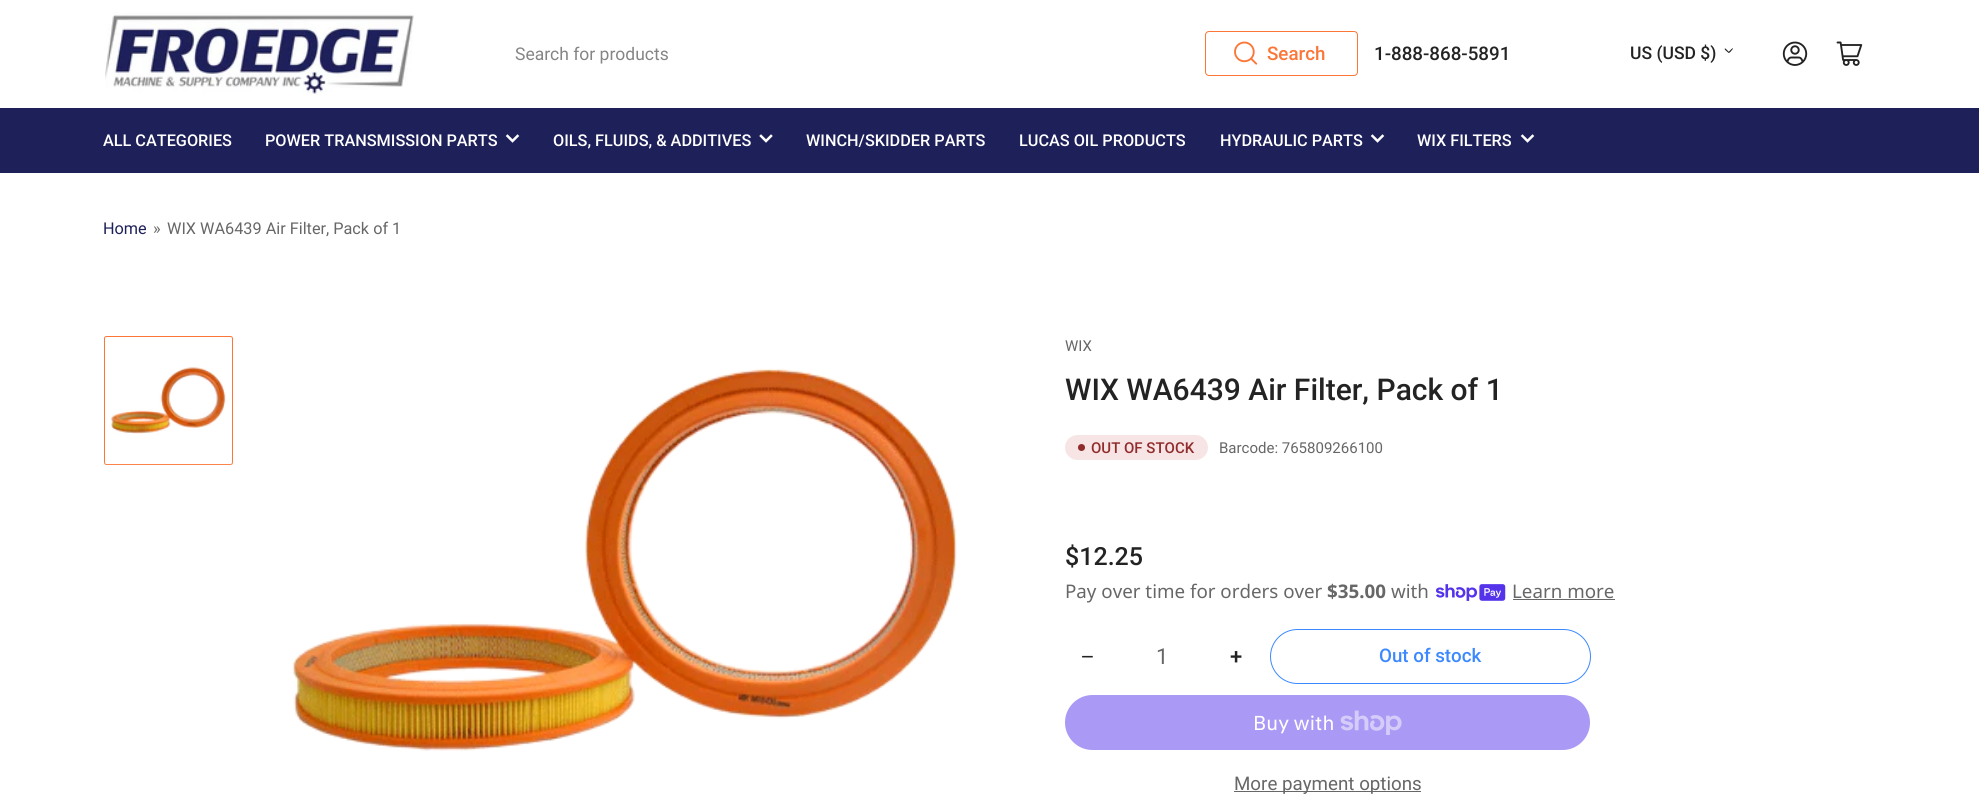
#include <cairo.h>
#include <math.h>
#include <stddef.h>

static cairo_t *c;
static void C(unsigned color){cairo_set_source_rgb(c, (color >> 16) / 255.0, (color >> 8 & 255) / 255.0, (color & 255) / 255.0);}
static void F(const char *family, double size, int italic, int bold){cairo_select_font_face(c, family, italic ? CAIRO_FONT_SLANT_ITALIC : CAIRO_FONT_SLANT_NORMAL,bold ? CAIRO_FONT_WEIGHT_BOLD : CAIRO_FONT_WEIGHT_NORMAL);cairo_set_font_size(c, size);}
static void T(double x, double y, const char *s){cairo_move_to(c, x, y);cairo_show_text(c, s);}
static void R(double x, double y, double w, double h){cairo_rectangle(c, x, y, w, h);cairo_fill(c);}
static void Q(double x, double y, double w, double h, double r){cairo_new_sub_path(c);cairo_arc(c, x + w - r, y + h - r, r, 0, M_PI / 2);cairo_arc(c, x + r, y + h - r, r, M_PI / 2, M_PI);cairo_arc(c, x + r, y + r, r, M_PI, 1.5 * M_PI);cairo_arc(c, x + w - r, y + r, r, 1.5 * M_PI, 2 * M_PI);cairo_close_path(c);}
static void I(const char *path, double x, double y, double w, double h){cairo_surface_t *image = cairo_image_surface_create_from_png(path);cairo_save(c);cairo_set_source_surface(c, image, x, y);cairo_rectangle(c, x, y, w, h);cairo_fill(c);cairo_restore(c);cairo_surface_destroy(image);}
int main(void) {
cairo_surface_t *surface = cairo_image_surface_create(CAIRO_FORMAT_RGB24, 1979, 795);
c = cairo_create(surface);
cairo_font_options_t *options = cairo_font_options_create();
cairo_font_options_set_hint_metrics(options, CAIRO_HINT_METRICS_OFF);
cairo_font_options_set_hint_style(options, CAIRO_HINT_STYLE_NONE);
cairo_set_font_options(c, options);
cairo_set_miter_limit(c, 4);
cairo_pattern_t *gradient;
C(0xffffff);
cairo_paint(c);
I("1.png",105,12,309,83);
F("Roboto",17.5,0,0);
C(0x858585);
T(515,60,"Search for products");
Q(1205.5,31.5,152,44,3.5);
C(0xfb7637);
cairo_set_line_width(c,1);
cairo_stroke(c);
I("2.png",1234,41,24,24);
F("Roboto Medium",18.75,0,0);
T(1267,60,"Search");
C(0x232323);
T(1374,60,"1-888-868-5891");
F("Roboto Medium",17.5,0,0);
T(1630,59,"US (USD $)");
cairo_new_path(c);
cairo_move_to(c,1725.5,48.5);
cairo_line_to(c,1728.5,51.5);
cairo_curve_to(c,1730,53,1729,53.5,1727.5,52);
cairo_curve_to(c,1727,51.5,1723.5,49,1725,48.5);
cairo_close_path(c);
cairo_fill(c);
cairo_new_path(c);
cairo_move_to(c,1728.5,52);
cairo_line_to(c,1731.5,49);
cairo_curve_to(c,1733,47.5,1733.5,48.5,1732,50);
cairo_curve_to(c,1731.5,50.5,1729,54,1728.5,52.5);
cairo_close_path(c);
cairo_fill(c);
I("3.png",1782,41,26,25);
I("4.png",1836,41,27,25);
C(0x1e205a);
R(0,108,1979,65);
F("Roboto Medium",16.25,0,0);
C(0xffffff);
T(103,146,"ALL CATEGORIES");
T(265,146,"POWER TRANSMISSION PARTS");
cairo_new_path(c);
cairo_move_to(c,517.5,136);
cairo_line_to(c,512.5,141);
cairo_line_to(c,507.5,136);
cairo_set_line_width(c,2.5);
cairo_set_line_cap(c,CAIRO_LINE_CAP_SQUARE);
cairo_stroke(c);
T(553,146,"OILS, FLUIDS, & ADDITIVES");
cairo_new_path(c);
cairo_move_to(c,771,136);
cairo_line_to(c,766,141);
cairo_line_to(c,761,136);
cairo_stroke(c);
T(806,146,"WINCH/SKIDDER PARTS");
T(1019,146,"LUCAS OIL PRODUCTS");
T(1220,146,"HYDRAULIC PARTS");
cairo_new_path(c);
cairo_move_to(c,1382.5,136);
cairo_line_to(c,1377.5,141);
cairo_line_to(c,1372.5,136);
cairo_stroke(c);
T(1417,146,"WIX FILTERS");
cairo_new_path(c);
cairo_move_to(c,1532.5,136);
cairo_line_to(c,1527.5,141);
cairo_line_to(c,1522.5,136);
cairo_stroke(c);
F("Roboto",16.25,0,0);
C(0x1e205a);
T(103,234,"Home");
C(0x676767);
T(153,234,"»");
T(167,234,"WIX WA6439 Air Filter, Pack of 1");
Q(104.5,336.5,128,128,2);
C(0xfb7637);
cairo_set_line_width(c,1);
cairo_set_line_cap(c,CAIRO_LINE_CAP_BUTT);
cairo_stroke(c);
I("5.png",111,367,115,67);
gradient = cairo_pattern_create_linear(168,504,168,460);
cairo_pattern_add_color_stop_rgba(gradient,0,1,1,1,1);
cairo_pattern_add_color_stop_rgba(gradient,1,1,1,1,0);
cairo_set_source(c,gradient);
cairo_pattern_destroy(gradient);
R(104,461,129,4);
I("6.png",292,368,665,383);
F("Roboto",15,0,0);
C(0x676767);
T(1065,351,"WIX");
F("Roboto Medium",30,0,0);
C(0x232323);
T(1065,400,"WIX WA6439 Air Filter, Pack of 1");
C(0xf7e5e5);
Q(1065,435,143,25,12.5);
cairo_fill(c);
C(0x922c2c);
cairo_arc(c,1081.5,447.5,3.5,0,2 * M_PI);
cairo_fill(c);
F("Roboto Medium",15,0,0);
T(1091,453,"OUT OF STOCK");
F("Roboto",15,0,0);
C(0x676767);
T(1219,453,"Barcode: 765809266100");
F("Roboto Medium",25,0,0);
C(0x232323);
T(1065,565,"$12.25");
F("Noto Sans",18.75,0,0);
C(0x676767);
T(1065,598,"Pay over time for orders over");
F("Noto Sans",18.75,0,1);
T(1327,598,"$35.00");
F("Noto Sans",18.75,0,0);
T(1391,598,"with");
I("7.png",1436,584,70,17);
T(1512,598,"Learn more");
R(1513,599,102,1);
F("Liberation Sans",22,0,0);
C(0x232323);
T(1081,664,"−");
F("Roboto",22,0,0);
C(0x676767);
T(1156,664,"1");
F("Roboto Medium",22,0,0);
C(0x232323);
T(1230,664,"+");
Q(1270.5,629.5,320,54,27);
C(0x3c89ff);
cairo_stroke(c);
F("Roboto Medium",18.75,0,0);
T(1379,662,"Out of stock");
C(0xaa99f5);
Q(1065,695,525,55,27.5);
cairo_fill(c);
F("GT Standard",20,0,0);
C(0xffffff);
T(1253,730,"Buy with");
I("8.png",1340,710,62,25);
C(0x676767);
R(1234,791,187,1);
F("Roboto",18.75,0,0);
T(1234,790,"More payment options");
cairo_surface_write_to_png(surface, "o.png");
cairo_font_options_destroy(options);
cairo_destroy(c);
cairo_surface_destroy(surface);
return 0;
}
